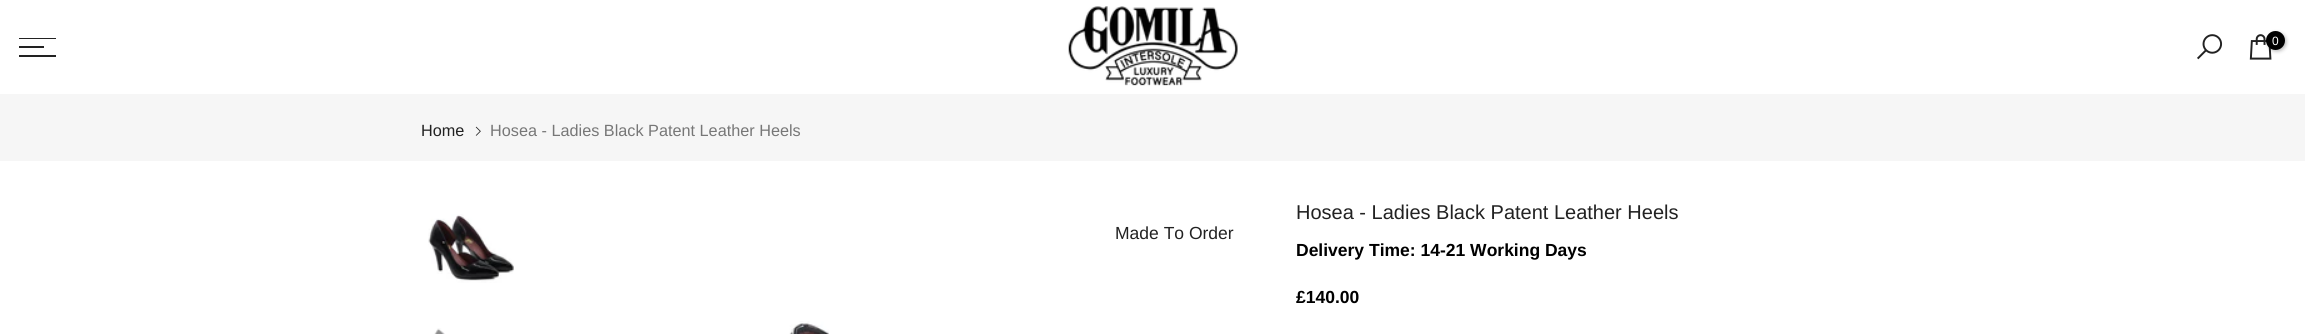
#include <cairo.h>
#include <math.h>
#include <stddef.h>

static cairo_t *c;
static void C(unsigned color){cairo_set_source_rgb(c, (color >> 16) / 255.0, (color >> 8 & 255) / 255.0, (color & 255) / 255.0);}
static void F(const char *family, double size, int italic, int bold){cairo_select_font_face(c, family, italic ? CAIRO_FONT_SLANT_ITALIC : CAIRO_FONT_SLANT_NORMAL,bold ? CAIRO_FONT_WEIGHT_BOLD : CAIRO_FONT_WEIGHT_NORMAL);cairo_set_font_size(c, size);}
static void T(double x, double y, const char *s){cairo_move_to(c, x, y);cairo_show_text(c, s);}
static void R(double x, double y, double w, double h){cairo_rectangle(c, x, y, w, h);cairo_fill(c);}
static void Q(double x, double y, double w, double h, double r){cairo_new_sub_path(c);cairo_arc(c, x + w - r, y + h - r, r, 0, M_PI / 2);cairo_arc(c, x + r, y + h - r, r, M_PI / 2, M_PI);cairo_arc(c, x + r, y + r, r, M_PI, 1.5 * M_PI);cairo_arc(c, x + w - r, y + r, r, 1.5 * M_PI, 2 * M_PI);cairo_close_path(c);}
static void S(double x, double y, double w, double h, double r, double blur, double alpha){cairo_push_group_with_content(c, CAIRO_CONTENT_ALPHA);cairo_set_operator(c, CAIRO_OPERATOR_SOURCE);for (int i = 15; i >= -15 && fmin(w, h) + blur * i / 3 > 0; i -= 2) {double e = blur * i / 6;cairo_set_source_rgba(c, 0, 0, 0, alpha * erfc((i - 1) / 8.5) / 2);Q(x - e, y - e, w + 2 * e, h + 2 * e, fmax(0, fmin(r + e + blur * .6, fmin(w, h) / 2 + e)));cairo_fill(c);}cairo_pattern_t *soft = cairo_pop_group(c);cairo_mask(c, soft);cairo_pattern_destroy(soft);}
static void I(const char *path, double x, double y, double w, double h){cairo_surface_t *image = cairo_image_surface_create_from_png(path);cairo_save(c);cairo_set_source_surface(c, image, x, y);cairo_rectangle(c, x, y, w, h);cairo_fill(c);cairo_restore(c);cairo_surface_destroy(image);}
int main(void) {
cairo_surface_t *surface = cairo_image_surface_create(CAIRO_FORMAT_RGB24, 2305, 334);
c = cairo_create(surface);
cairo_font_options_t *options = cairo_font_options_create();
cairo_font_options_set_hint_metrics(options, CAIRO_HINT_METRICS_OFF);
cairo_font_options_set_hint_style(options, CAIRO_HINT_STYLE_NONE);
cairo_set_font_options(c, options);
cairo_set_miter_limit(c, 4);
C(0xffffff);
cairo_paint(c);
C(0x222222);
R(19,38,37,1);
R(19,46,25,2);
R(19,55,37,2);
I("1.png",1068,6,170,80);
I("2.png",2197,34,26,26);
I("3.png",2249,34,23,26);
C(0x000000);
S(2268,33,18,18,9,2,.3);
C(0x000000);
cairo_arc(c,2275.5,40.5,9.5,0,2 * M_PI);
cairo_fill(c);
F("Liberation Sans",12,0,0);
C(0xffffff);
T(2272,45,"0");
C(0xf6f6f6);
R(0,94,2305,67);
F("Liberation Sans",16.25,0,0);
C(0x222222);
T(421,136,"Home");
I("4.png",475,126,6,10);
C(0x777777);
T(490,136,"Hosea - Ladies Black Patent Leather Heels");
I("5.png",428,214,86,69);
I("6.png",434,328,11,6);
F("Liberation Sans",17.5,0,0);
C(0x222222);
T(1115,239,"Made To Order");
I("7.png",789,321,40,13);
F("Liberation Sans",20,0,0);
T(1296,219,"Hosea - Ladies Black Patent Leather Heels");
F("Liberation Sans",17.5,0,1);
C(0x000000);
T(1296,256,"Delivery Time: 14-21 Working Days");
T(1296,303,"£140.00");
cairo_surface_write_to_png(surface, "o.png");
cairo_font_options_destroy(options);
cairo_destroy(c);
cairo_surface_destroy(surface);
return 0;
}
